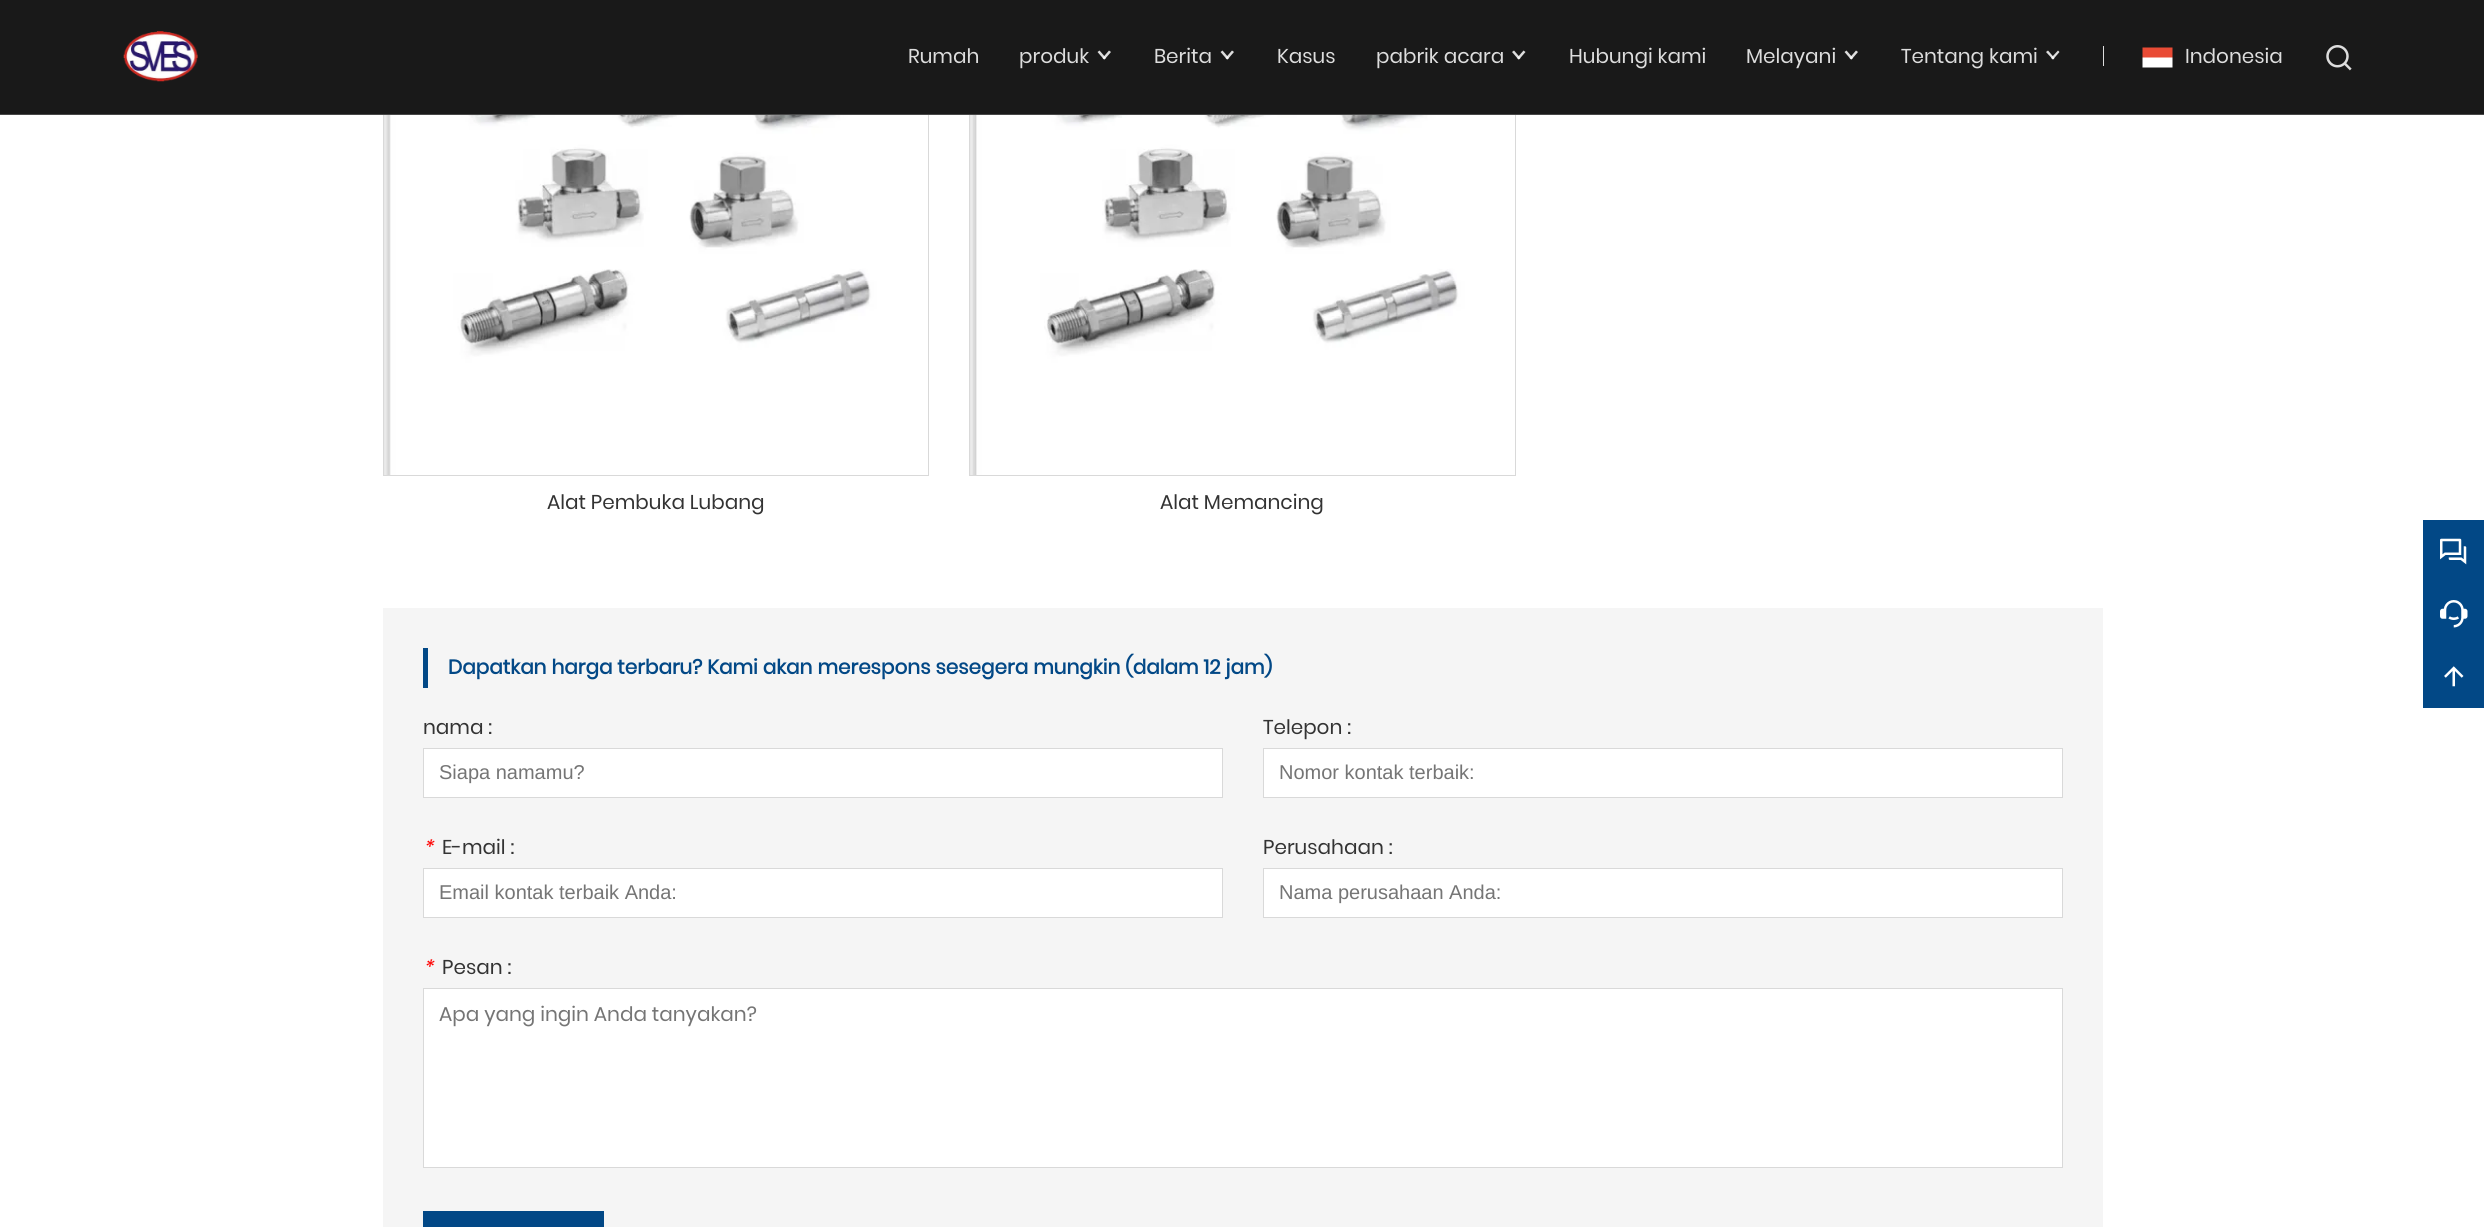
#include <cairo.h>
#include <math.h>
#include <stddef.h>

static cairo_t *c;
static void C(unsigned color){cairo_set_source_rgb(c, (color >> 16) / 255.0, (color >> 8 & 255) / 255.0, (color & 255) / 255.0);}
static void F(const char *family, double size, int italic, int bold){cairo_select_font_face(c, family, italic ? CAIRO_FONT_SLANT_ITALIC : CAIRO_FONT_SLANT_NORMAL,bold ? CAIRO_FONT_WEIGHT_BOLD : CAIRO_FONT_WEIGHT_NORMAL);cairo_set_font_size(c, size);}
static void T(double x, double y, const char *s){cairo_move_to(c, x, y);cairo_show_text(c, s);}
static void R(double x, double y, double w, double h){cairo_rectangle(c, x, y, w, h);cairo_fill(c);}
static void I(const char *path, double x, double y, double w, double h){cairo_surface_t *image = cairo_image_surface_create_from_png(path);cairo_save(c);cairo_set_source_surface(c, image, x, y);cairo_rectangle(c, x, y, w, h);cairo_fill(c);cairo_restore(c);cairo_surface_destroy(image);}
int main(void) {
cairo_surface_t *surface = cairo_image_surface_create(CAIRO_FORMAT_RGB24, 2484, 1227);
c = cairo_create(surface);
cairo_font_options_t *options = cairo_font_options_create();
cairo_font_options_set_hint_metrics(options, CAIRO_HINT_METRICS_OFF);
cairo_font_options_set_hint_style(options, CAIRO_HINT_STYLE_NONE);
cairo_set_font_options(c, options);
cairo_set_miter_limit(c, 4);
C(0xffffff);
cairo_paint(c);
cairo_rectangle(c,383.5,-.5,545,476);
C(0xd9d9d9);
cairo_set_line_width(c,1);
cairo_stroke(c);
cairo_rectangle(c,969.5,-.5,546,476);
cairo_stroke(c);
C(0x191919);
R(0,0,2484,114);
C(0x474747);
R(0,114,2484,1);
I("1.png",123,31,75,51);
F("Poppins",20,0,0);
C(0xdddddd);
T(908,63,"Rumah");
T(1019,63,"produk");
cairo_new_path(c);
cairo_move_to(c,1099.5,50.5);
cairo_line_to(c,1106,58);
cairo_line_to(c,1104,59.5);
cairo_line_to(c,1097.5,52);
cairo_close_path(c);
cairo_fill(c);
cairo_set_source_rgba(c,1,1,1,0.85);
cairo_new_path(c);
cairo_move_to(c,1102.5,58);
cairo_line_to(c,1109,50.5);
cairo_line_to(c,1111,52);
cairo_line_to(c,1104.5,59.5);
cairo_close_path(c);
cairo_fill(c);
C(0xdddddd);
T(1154,63,"Berita");
cairo_new_path(c);
cairo_move_to(c,1222.5,50.5);
cairo_line_to(c,1229,58);
cairo_line_to(c,1227,59.5);
cairo_line_to(c,1220.5,52);
cairo_close_path(c);
cairo_fill(c);
cairo_set_source_rgba(c,1,1,1,0.85);
cairo_new_path(c);
cairo_move_to(c,1225.5,58);
cairo_line_to(c,1232,50.5);
cairo_line_to(c,1234,52);
cairo_line_to(c,1227.5,59.5);
cairo_close_path(c);
cairo_fill(c);
C(0xdddddd);
T(1277,63,"Kasus");
T(1376,63,"pabrik acara");
cairo_new_path(c);
cairo_move_to(c,1514,50.5);
cairo_line_to(c,1520.5,58);
cairo_line_to(c,1518.5,59.5);
cairo_line_to(c,1512,52);
cairo_close_path(c);
cairo_fill(c);
cairo_set_source_rgba(c,1,1,1,0.85);
cairo_new_path(c);
cairo_move_to(c,1517,58);
cairo_line_to(c,1523.5,50.5);
cairo_line_to(c,1525.5,52);
cairo_line_to(c,1519,59.5);
cairo_close_path(c);
cairo_fill(c);
C(0xdddddd);
T(1569,63,"Hubungi kami");
T(1746,63,"Melayani");
cairo_new_path(c);
cairo_move_to(c,1846.5,50.5);
cairo_line_to(c,1853,58);
cairo_line_to(c,1851,59.5);
cairo_line_to(c,1844.5,52);
cairo_close_path(c);
cairo_fill(c);
cairo_set_source_rgba(c,1,1,1,0.85);
cairo_new_path(c);
cairo_move_to(c,1849.5,58);
cairo_line_to(c,1856,50.5);
cairo_line_to(c,1858,52);
cairo_line_to(c,1851.5,59.5);
cairo_close_path(c);
cairo_fill(c);
C(0xdddddd);
T(1901,63,"Tentang kami");
cairo_new_path(c);
cairo_move_to(c,2048,50.5);
cairo_line_to(c,2054.5,58);
cairo_line_to(c,2053,59.5);
cairo_line_to(c,2046,52);
cairo_close_path(c);
cairo_fill(c);
cairo_set_source_rgba(c,1,1,1,0.85);
cairo_new_path(c);
cairo_move_to(c,2051,58);
cairo_line_to(c,2058,50.5);
cairo_line_to(c,2059.5,52);
cairo_line_to(c,2053,59.5);
cairo_close_path(c);
cairo_fill(c);
C(0xdddddd);
R(2103,46,1,20);
I("2.png",2142,47,31,21);
T(2185,63,"Indonesia");
I("3.png",2326,45,26,26);
I("4.png",384,115,494,360);
C(0x333333);
T(547,509,"Alat Pembuka Lubang");
I("5.png",970,115,496,360);
T(1160,509,"Alat Memancing");
C(0xf5f5f5);
R(383,608,1720,619);
C(0x024886);
R(423,648,5,40);
F("Poppins",20,0,1);
T(448,674,"Dapatkan harga terbaru? Kami akan merespons sesegera mungkin (dalam 12 jam)");
F("Poppins",20,0,0);
C(0x333333);
T(423,734,"nama :");
C(0xffffff);
cairo_rectangle(c,423.5,748.5,799,49);
cairo_fill_preserve(c);
C(0xd9d9d9);
cairo_stroke(c);
F("Liberation Sans",20,0,0);
C(0x757575);
T(439,779,"Siapa namamu?");
F("Poppins",20,0,0);
C(0x333333);
T(1263,734,"Telepon :");
C(0xffffff);
cairo_rectangle(c,1263.5,748.5,799,49);
cairo_fill_preserve(c);
C(0xd9d9d9);
cairo_stroke(c);
F("Liberation Sans",20,0,0);
C(0x757575);
T(1279,779,"Nomor kontak terbaik:");
F("Poppins",20,1,0);
C(0xff0000);
T(423,854,"*");
F("Poppins",20,0,0);
C(0x333333);
T(442,854,"E-mail :");
C(0xffffff);
cairo_rectangle(c,423.5,868.5,799,49);
cairo_fill_preserve(c);
C(0xd9d9d9);
cairo_stroke(c);
F("Liberation Sans",20,0,0);
C(0x757575);
T(439,899,"Email kontak terbaik Anda:");
F("Poppins",20,0,0);
C(0x333333);
T(1263,854,"Perusahaan :");
C(0xffffff);
cairo_rectangle(c,1263.5,868.5,799,49);
cairo_fill_preserve(c);
C(0xd9d9d9);
cairo_stroke(c);
F("Liberation Sans",20,0,0);
C(0x757575);
T(1279,899,"Nama perusahaan Anda:");
F("Poppins",20,1,0);
C(0xff0000);
T(423,974,"*");
F("Poppins",20,0,0);
C(0x333333);
T(442,974,"Pesan :");
C(0xffffff);
cairo_rectangle(c,423.5,988.5,1639,179);
cairo_fill_preserve(c);
C(0xd9d9d9);
cairo_stroke(c);
C(0x757575);
T(439,1021,"Apa yang ingin Anda tanyakan?");
C(0x024886);
R(423,1211,181,16);
R(2423,520,61,188);
I("6.png",2440,538,27,27);
I("7.png",2440,600,28,28);
I("8.png",2444,666,20,21);
cairo_surface_write_to_png(surface, "o.png");
cairo_font_options_destroy(options);
cairo_destroy(c);
cairo_surface_destroy(surface);
return 0;
}
